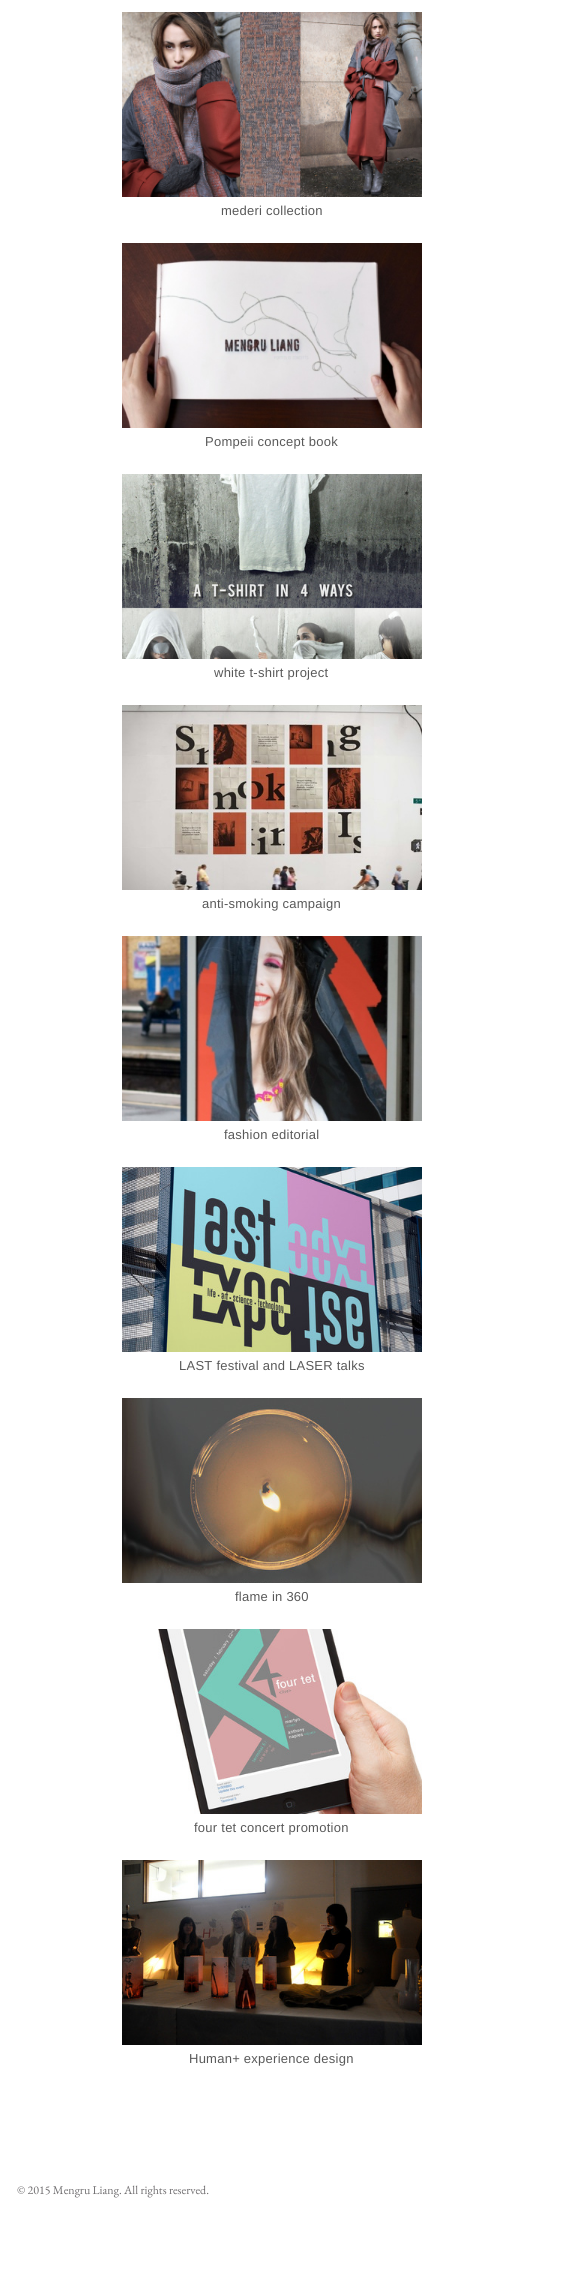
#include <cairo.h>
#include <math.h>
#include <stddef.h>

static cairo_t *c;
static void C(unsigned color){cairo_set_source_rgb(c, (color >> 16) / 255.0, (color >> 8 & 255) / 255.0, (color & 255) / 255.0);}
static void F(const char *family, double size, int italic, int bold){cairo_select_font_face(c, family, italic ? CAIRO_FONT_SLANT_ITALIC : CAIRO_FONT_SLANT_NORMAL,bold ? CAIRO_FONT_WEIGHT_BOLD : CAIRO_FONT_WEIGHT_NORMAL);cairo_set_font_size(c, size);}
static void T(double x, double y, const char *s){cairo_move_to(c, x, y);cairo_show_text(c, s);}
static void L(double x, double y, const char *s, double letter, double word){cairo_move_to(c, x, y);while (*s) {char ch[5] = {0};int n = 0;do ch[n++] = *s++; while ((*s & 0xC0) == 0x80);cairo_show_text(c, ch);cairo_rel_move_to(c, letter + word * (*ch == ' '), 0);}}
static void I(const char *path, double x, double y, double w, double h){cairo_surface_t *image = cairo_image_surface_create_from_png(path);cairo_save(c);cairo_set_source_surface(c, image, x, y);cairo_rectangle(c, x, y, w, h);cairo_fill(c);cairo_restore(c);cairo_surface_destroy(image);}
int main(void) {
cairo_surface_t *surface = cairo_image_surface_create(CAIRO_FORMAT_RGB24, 567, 2287);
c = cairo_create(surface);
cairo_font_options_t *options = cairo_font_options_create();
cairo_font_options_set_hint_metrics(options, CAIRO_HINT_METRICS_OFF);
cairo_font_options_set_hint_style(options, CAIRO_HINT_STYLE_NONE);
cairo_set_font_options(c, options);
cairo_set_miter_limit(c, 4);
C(0xffffff);
cairo_paint(c);
I("1.png",122,12,300,185);
F("Liberation Sans",13,0,0);
C(0x595959);
L(221,215,"mederi collection",.25,0);
I("2.png",122,243,300,185);
L(205,446,"Pompeii concept book",.25,0);
I("3.png",122,474,300,185);
L(214,677,"white t-shirt project",.25,0);
I("4.png",122,705,300,185);
L(202,908,"anti-smoking campaign",.25,0);
I("5.png",122,936,300,185);
L(224,1139,"fashion editorial",.25,0);
I("6.png",122,1167,300,185);
L(179,1370,"LAST festival and LASER talks",.25,0);
I("7.png",122,1398,300,185);
L(235,1601,"flame in 360",.25,0);
I("8.png",158,1629,264,185);
L(194,1832,"four tet concert promotion",.25,0);
I("9.png",122,1860,300,185);
L(189,2063,"Human+ experience design",.25,0);
F("EB Garamond",12,0,0);
C(0x706e70);
T(17,2194,"© 2015 Mengru Liang. All rights reserved.");
cairo_surface_write_to_png(surface, "o.png");
cairo_font_options_destroy(options);
cairo_destroy(c);
cairo_surface_destroy(surface);
return 0;
}
